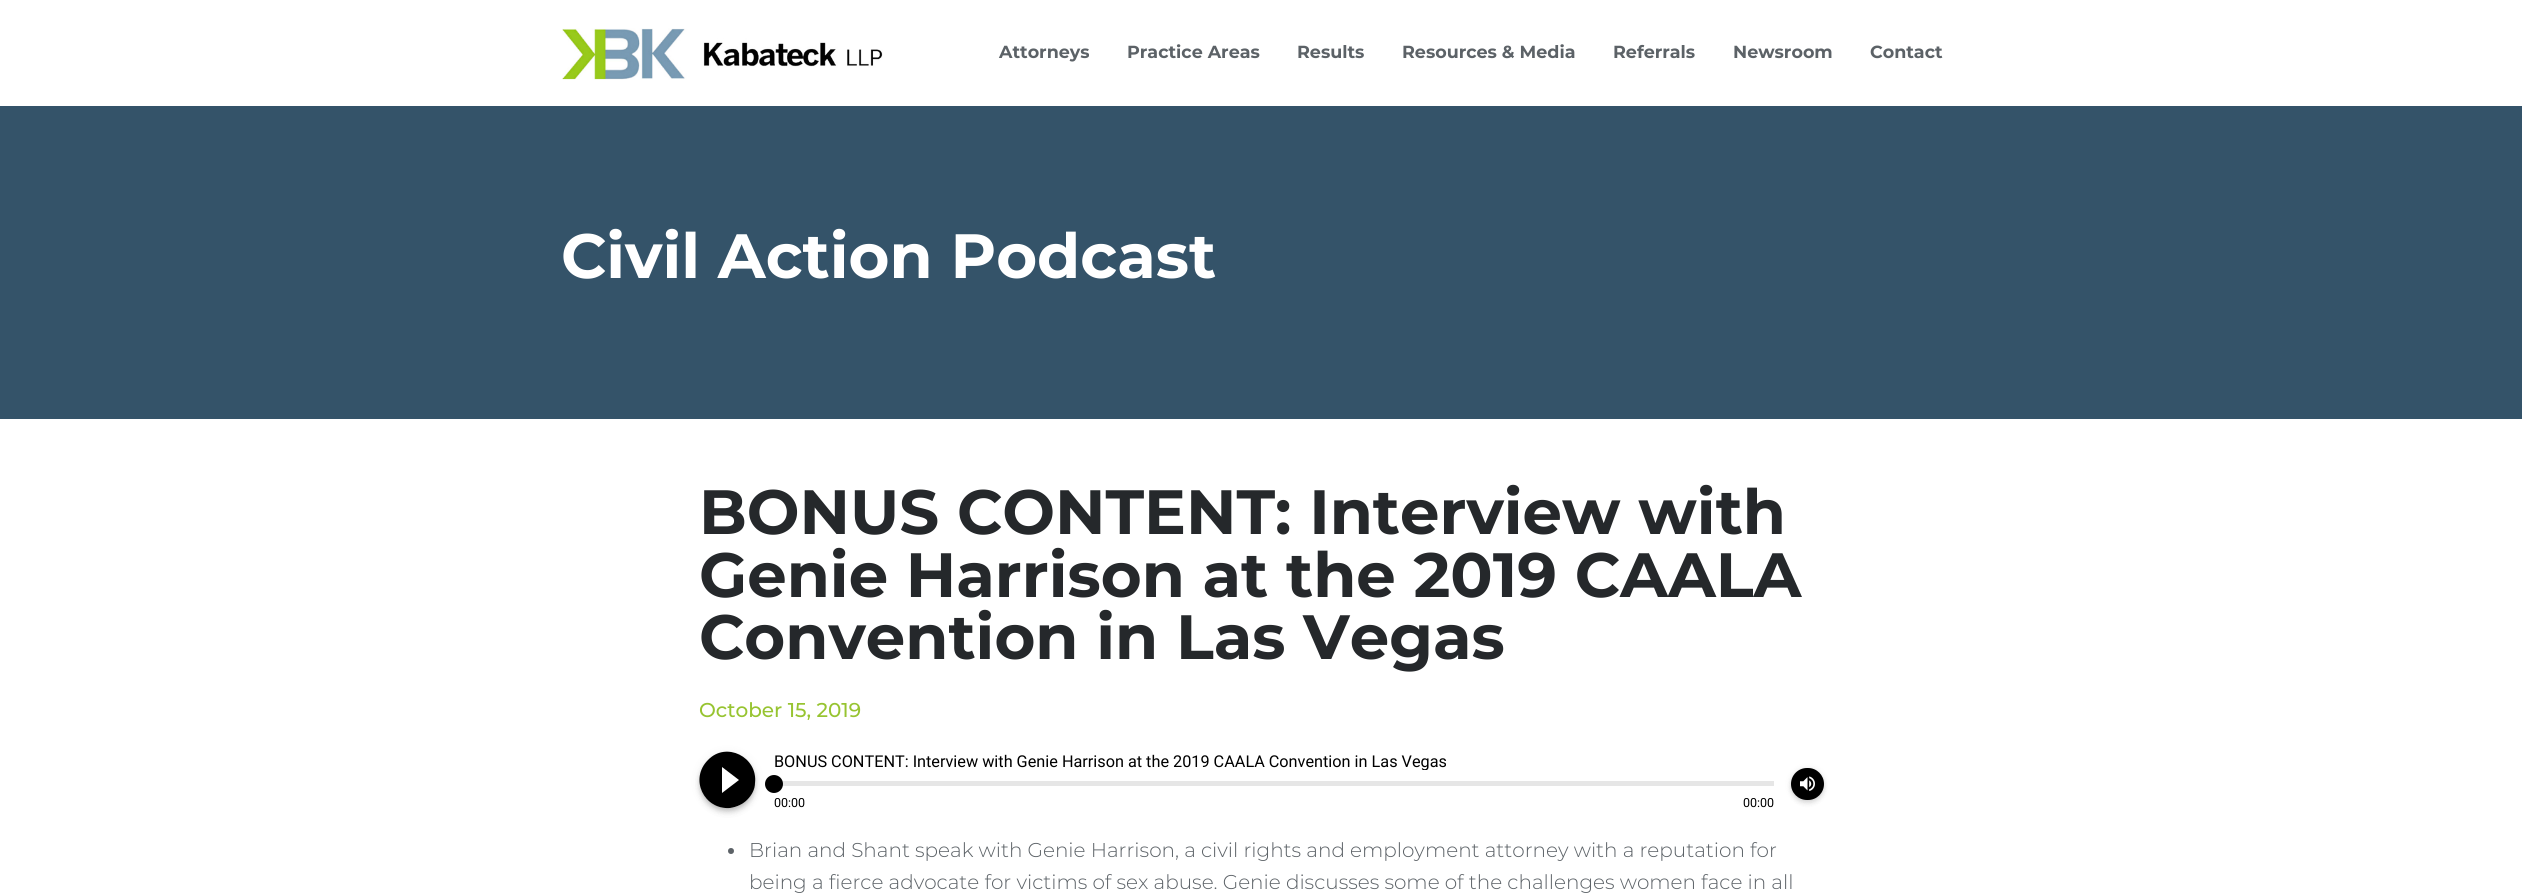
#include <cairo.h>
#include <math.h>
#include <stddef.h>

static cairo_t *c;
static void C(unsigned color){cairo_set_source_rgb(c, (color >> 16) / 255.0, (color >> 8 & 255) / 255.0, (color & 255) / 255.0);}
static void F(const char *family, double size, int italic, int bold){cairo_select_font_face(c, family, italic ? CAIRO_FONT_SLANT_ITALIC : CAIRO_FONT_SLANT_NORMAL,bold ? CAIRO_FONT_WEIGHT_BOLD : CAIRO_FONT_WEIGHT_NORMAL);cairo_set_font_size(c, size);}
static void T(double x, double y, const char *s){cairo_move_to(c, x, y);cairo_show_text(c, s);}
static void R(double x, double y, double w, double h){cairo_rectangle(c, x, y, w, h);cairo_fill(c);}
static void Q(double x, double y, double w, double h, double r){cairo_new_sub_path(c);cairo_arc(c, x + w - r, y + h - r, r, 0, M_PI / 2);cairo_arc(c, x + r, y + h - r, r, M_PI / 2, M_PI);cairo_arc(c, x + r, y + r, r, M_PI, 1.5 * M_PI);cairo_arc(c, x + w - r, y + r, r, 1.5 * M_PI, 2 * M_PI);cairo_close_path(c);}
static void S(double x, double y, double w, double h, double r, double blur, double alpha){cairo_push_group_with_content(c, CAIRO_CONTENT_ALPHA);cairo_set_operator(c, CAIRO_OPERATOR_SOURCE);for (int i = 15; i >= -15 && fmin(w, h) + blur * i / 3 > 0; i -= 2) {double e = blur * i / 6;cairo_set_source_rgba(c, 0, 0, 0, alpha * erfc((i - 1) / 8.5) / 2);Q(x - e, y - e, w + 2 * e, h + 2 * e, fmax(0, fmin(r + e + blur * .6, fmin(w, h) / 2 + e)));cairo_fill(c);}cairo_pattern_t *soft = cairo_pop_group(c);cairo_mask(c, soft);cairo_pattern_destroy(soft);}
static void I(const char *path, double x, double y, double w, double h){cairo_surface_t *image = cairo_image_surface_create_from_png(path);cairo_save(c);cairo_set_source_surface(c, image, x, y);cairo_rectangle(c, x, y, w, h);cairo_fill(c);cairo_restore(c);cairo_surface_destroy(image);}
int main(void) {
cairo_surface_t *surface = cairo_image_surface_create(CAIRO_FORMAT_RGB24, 2522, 895);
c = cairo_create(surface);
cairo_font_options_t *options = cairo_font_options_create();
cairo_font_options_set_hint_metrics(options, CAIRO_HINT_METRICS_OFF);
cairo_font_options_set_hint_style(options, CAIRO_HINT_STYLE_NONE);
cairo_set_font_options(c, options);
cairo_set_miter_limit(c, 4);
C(0xffffff);
cairo_paint(c);
I("1.png",562,28,321,52);
F("Montserrat",17.5,0,1);
C(0x5c6267);
T(999,58,"Attorneys");
T(1127,58,"Practice Areas");
T(1297,58,"Results");
T(1402,58,"Resources & Media");
T(1613,58,"Referrals");
T(1733,58,"Newsroom");
T(1870,58,"Contact");
C(0x345369);
R(0,106,2522,313);
F("Montserrat",62.5,0,1);
C(0xffffff);
T(561,278,"Civil Action Podcast");
C(0x25282b);
T(699,534,"BONUS CONTENT: Interview with");
T(699,597,"Genie Harrison at the 2019 CAALA");
T(699,659,"Convention in Las Vegas");
F("Montserrat Medium",20,0,0);
C(0x97c431);
T(699,717,"October 15, 2019");
C(0x000000);
S(700,755,55,55,27.5,2.5,.2);
S(700,754,55,55,27.5,6,.05);
S(700,758,55,55,27.5,3,.09);
C(0xffffff);
cairo_arc(c,727.5,780.5,27.5,0,2 * M_PI);
cairo_fill(c);
C(0x000000);
cairo_new_path(c);
cairo_move_to(c,722,793);
cairo_line_to(c,739,780);
cairo_line_to(c,722,767);
cairo_close_path(c);
cairo_move_to(c,708,760);
cairo_curve_to(c,726,741,758,757,755,783);
cairo_curve_to(c,755,789,752,795,747,800);
cairo_curve_to(c,743,804,737,807,730,808);
cairo_curve_to(c,704,810,689,779,708,760);
cairo_close_path(c);
cairo_fill(c);
cairo_save(c);
cairo_rectangle(c,774,754,975,16);
cairo_clip(c);
F("Roboto",16.25,0,0);
T(774,767,"BONUS CONTENT: Interview with Genie Harrison at the 2019 CAALA Convention in Las Vegas");
cairo_restore(c);
C(0xe6e6e6);
R(774,781,1000,5);
C(0x000000);
cairo_new_path(c);
cairo_arc(c,774,784,9,0,2 * M_PI);
cairo_fill(c);
F("Roboto",12.5,0,0);
T(774,807,"00:00");
T(1743,807,"00:00");
C(0x000000);
S(1791,769,33,32,16,2,.1);
S(1791,769,33,32,16,4,.05);
S(1791,771,33,33,16.5,2.5,.07);
C(0x000000);
Q(1791,768,33,32,16);
cairo_fill(c);
I("2.png",1800,776,15,15);
C(0x5c6267);
cairo_arc(c,731,851,3,0,2 * M_PI);
cairo_fill(c);
F("Montserrat Light",20,0,0);
T(749,857,"Brian and Shant speak with Genie Harrison, a civil rights and employment attorney with a reputation for");
T(749,889,"being a fierce advocate for victims of sex abuse. Genie discusses some of the challenges women face in all");
cairo_surface_write_to_png(surface, "o.png");
cairo_font_options_destroy(options);
cairo_destroy(c);
cairo_surface_destroy(surface);
return 0;
}
